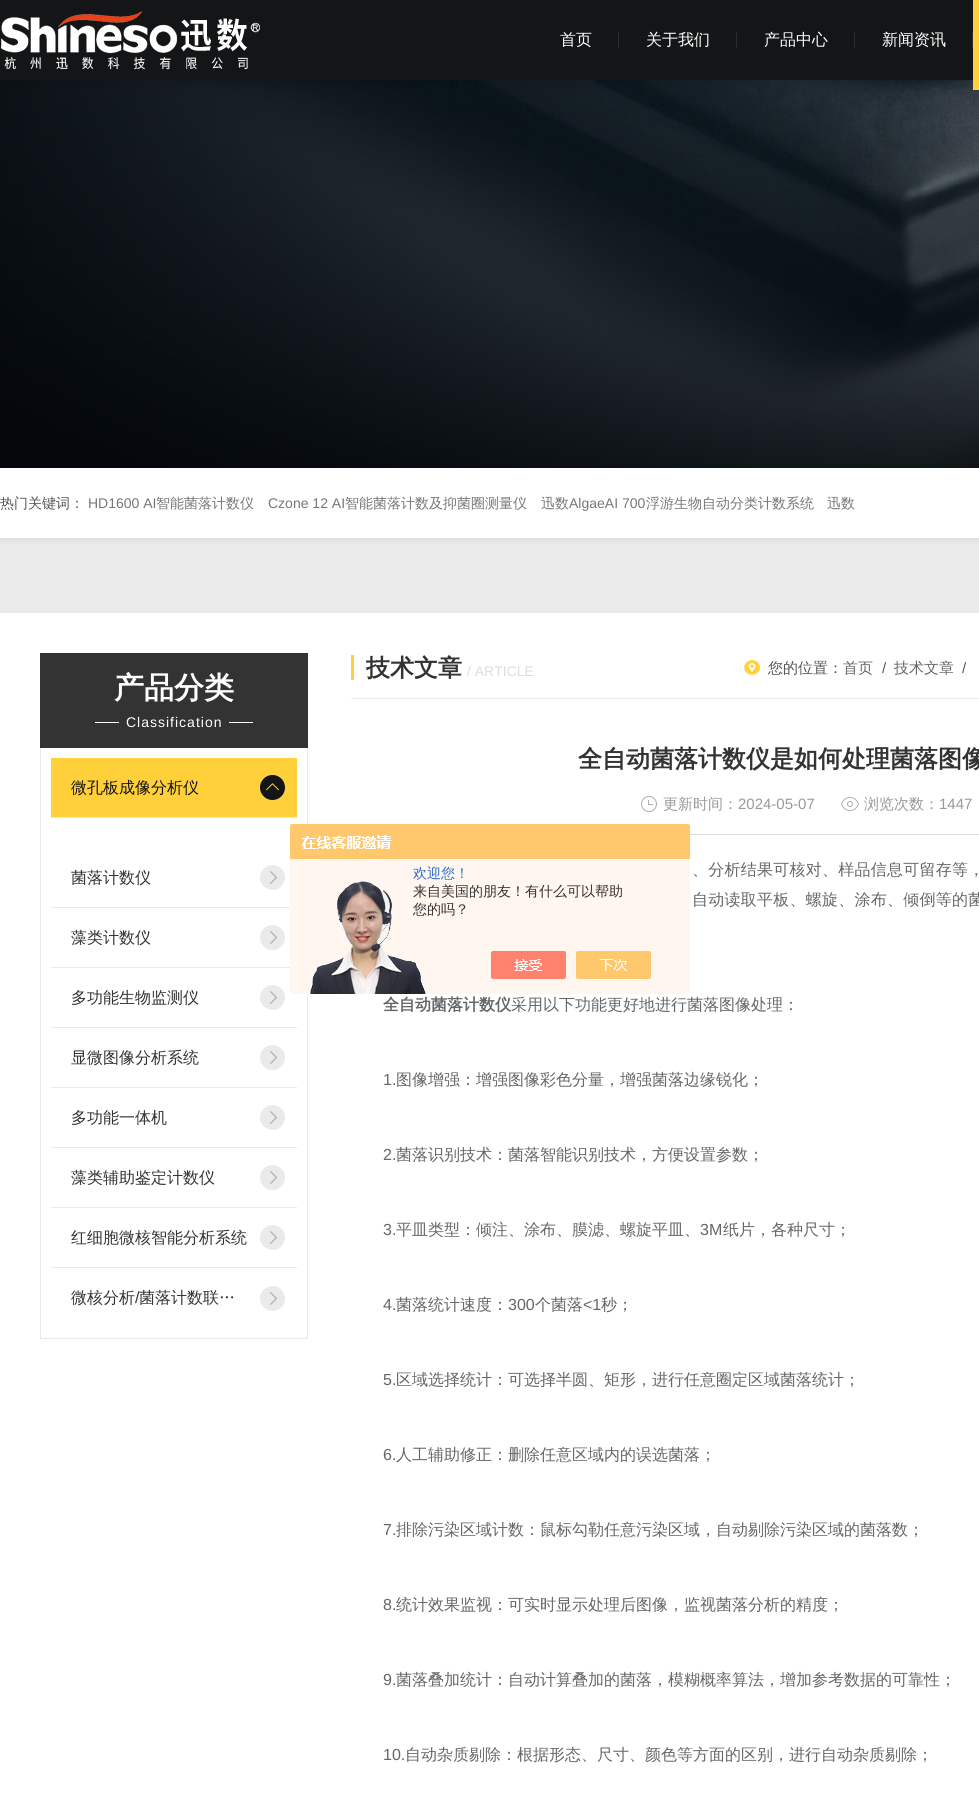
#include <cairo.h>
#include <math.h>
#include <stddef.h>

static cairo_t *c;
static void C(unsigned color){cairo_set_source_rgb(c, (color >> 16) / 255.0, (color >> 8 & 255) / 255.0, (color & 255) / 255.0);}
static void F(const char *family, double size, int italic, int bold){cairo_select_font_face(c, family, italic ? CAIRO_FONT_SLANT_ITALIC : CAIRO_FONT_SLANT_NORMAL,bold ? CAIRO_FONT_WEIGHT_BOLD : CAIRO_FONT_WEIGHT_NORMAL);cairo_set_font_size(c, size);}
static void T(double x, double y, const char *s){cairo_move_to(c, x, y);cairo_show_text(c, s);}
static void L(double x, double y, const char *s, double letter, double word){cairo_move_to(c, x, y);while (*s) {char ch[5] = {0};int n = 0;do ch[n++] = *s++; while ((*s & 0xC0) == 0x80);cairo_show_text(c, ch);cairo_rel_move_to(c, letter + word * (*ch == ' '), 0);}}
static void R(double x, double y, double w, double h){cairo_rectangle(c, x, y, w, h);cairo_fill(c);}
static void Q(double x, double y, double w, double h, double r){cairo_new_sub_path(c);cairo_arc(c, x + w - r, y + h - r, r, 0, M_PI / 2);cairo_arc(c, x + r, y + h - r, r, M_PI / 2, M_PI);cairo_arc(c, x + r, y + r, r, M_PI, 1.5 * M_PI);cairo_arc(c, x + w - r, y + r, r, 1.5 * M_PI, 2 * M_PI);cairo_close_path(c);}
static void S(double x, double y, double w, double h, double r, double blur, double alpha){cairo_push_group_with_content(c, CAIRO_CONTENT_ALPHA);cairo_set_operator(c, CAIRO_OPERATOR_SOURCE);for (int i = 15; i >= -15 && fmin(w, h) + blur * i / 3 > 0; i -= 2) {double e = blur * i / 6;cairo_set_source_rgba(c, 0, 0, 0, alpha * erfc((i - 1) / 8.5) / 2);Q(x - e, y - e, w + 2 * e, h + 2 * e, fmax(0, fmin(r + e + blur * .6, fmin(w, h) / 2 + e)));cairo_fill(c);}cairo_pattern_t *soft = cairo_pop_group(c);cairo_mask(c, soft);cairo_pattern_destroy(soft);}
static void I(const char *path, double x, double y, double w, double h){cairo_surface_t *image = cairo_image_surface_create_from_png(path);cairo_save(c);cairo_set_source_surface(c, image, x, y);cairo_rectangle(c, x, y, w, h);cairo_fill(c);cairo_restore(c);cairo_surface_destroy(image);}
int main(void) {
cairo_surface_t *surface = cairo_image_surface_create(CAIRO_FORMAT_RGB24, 979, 1817);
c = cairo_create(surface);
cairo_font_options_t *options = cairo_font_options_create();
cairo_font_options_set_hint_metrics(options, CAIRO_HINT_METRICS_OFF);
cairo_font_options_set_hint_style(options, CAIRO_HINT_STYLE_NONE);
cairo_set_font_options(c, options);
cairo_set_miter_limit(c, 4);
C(0xffffff);
cairo_paint(c);
I("2.png",0,80,979,388);
C(0x000000);
S(0,5,979,80,0,5,.1);
C(0x131517);
R(0,0,973,80);
I("1.png",1,11,259,59);
C(0x2a2b2d);
R(618,32,1,16);
F("WenQuanYi Zen Hei Medium",16,0,0);
C(0xffffff);
T(560,45,"首页");
C(0x2a2b2d);
R(736,32,1,16);
C(0xffffff);
T(646,45,"关于我们");
C(0x2a2b2d);
R(854,32,1,16);
C(0xffffff);
T(764,45,"产品中心");
C(0x2a2b2d);
R(972,32,1,16);
C(0xffffff);
T(882,45,"新闻资讯");
C(0xffd039);
R(973,0,6,90);
C(0xeaeaea);
R(0,538,979,75);
cairo_save(c);
cairo_set_fill_rule(c,CAIRO_FILL_RULE_EVEN_ODD);
cairo_new_path(c);
cairo_move_to(c,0,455);
cairo_line_to(c,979,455);
cairo_line_to(c,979,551);
cairo_line_to(c,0,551);
cairo_close_path(c);
cairo_move_to(c,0,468);
cairo_line_to(c,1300,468);
cairo_line_to(c,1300,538);
cairo_line_to(c,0,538);
cairo_close_path(c);
cairo_clip(c);
C(0x000000);
S(0,468,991,70,0,4,.1);
cairo_restore(c);
F("WenQuanYi Zen Hei Medium",14,0,0);
C(0x555555);
T(0,508,"热门关键词：");
F("Liberation Sans",14,0,0);
C(0x777777);
T(88,508,"HD1600 AI");
F("WenQuanYi Zen Hei Medium",14,0,0);
T(156,508,"智能菌落计数仪");
F("Liberation Sans",14,0,0);
T(268,508,"Czone 12 AI");
F("WenQuanYi Zen Hei Medium",14,0,0);
T(345,508,"智能菌落计数及抑菌圈测量仪");
T(541,508,"迅数");
F("Liberation Sans",14,0,0);
T(569,508,"AlgaeAI 700");
F("WenQuanYi Zen Hei Medium",14,0,0);
T(646,508,"浮游生物自动分类计数系统");
T(827,508,"迅数");
C(0x333333);
R(40,653,268,95);
F("WenQuanYi Zen Hei",30,0,1);
C(0xffffff);
T(114,698,"产品分类");
R(95,722,24,1);
F("Liberation Sans",14,0,0);
L(126,727,"Classification",1,0);
R(229,722,24,1);
C(0xeaeaea);
R(307,748,1,591);
R(40,1338,268,1);
R(40,748,1,591);
C(0xffd039);
R(51,758,246,59);
C(0xeaeaea);
R(51,817,246,1);
F("WenQuanYi Zen Hei Medium",16,0,0);
C(0x131517);
T(71,793,"微孔板成像分析仪");
I("3.png",260,775,25,25);
C(0xeaeaea);
R(51,907,246,1);
C(0x333333);
T(71,883,"菌落计数仪");
I("4.png",260,865,25,25);
C(0xeaeaea);
R(51,967,246,1);
C(0x333333);
T(71,943,"藻类计数仪");
I("4.png",260,925,25,25);
C(0xeaeaea);
R(51,1027,246,1);
C(0x333333);
T(71,1003,"多功能生物监测仪");
I("4.png",260,985,25,25);
C(0xeaeaea);
R(51,1087,246,1);
C(0x333333);
T(71,1063,"显微图像分析系统");
I("4.png",260,1045,25,25);
C(0xeaeaea);
R(51,1147,246,1);
C(0x333333);
T(71,1123,"多功能一体机");
I("4.png",260,1105,25,25);
C(0xeaeaea);
R(51,1207,246,1);
C(0x333333);
T(71,1183,"藻类辅助鉴定计数仪");
I("4.png",260,1165,25,25);
C(0xeaeaea);
R(51,1267,246,1);
C(0x333333);
T(71,1243,"红细胞微核智能分析系统");
I("4.png",260,1225,25,25);
T(71,1303,"微核分析");
F("Liberation Sans",16,0,0);
T(135,1303,"/");
F("WenQuanYi Zen Hei Medium",16,0,0);
T(139,1303,"菌落计数联…");
I("4.png",260,1286,25,25);
C(0xeaeaea);
R(351,698,628,1);
C(0xffd039);
R(351,655,3,25);
F("WenQuanYi Zen Hei",24,0,1);
C(0x333333);
T(366,676,"技术文章");
F("Liberation Sans",14,0,0);
C(0xdddddd);
T(467,676,"/ ARTICLE");
I("5.png",744,660,16,15);
F("WenQuanYi Zen Hei Medium",15,0,0);
C(0x555555);
T(768,673,"您的位置：");
C(0x666666);
T(843,673,"首页");
F("Liberation Sans",15,0,0);
C(0x555555);
T(882,673,"/");
F("WenQuanYi Zen Hei Medium",15,0,0);
C(0x666666);
T(894,673,"技术文章");
F("Liberation Sans",15,0,0);
C(0x555555);
T(962,673,"/");
F("WenQuanYi Zen Hei",24,0,1);
C(0x333333);
T(578,767,"全自动菌落计数仪是如何处理菌落图像");
C(0xdddddd);
R(690,834,289,1);
I("6.png",641,796,16,16);
F("WenQuanYi Zen Hei Medium",15,0,0);
C(0x999999);
T(663,809,"更新时间：");
F("Liberation Sans",15,0,0);
T(738,809,"2024-05-07");
I("7.png",841,797,18,14);
F("WenQuanYi Zen Hei Medium",15,0,0);
T(864,809,"浏览次数：");
F("Liberation Sans",15,0,0);
T(939,809,"1447");
F("WenQuanYi Zen Hei Medium",16,0,0);
C(0x666666);
L(692,875,"、分析结果可核对、样品信息可留存等，",.25,0);
L(692,905,"自动读取平板、螺旋、涂布、倾倒等的菌",.25,0);
F("WenQuanYi Zen Hei",16,0,1);
T(383,1010,"全自动菌落计数仪");
F("WenQuanYi Zen Hei Medium",16,0,0);
T(511,1010,"采用以下功能更好地进行菌落图像处理：");
F("Liberation Sans",16,0,0);
T(383,1085,"1.");
F("WenQuanYi Zen Hei Medium",16,0,0);
T(396,1085,"图像增强：增强图像彩色分量，增强菌落边缘锐化；");
F("Liberation Sans",16,0,0);
T(383,1160,"2.");
F("WenQuanYi Zen Hei Medium",16,0,0);
T(396,1160,"菌落识别技术：菌落智能识别技术，方便设置参数；");
F("Liberation Sans",16,0,0);
T(383,1235,"3.");
F("WenQuanYi Zen Hei Medium",16,0,0);
T(396,1235,"平皿类型：倾注、涂布、膜滤、螺旋平皿、");
F("Liberation Sans",16,0,0);
T(700,1235,"3M");
F("WenQuanYi Zen Hei Medium",16,0,0);
T(723,1235,"纸片，各种尺寸；");
F("Liberation Sans",16,0,0);
T(383,1310,"4.");
F("WenQuanYi Zen Hei Medium",16,0,0);
T(396,1310,"菌落统计速度：");
F("Liberation Sans",16,0,0);
T(508,1310,"300");
F("WenQuanYi Zen Hei Medium",16,0,0);
T(535,1310,"个菌落");
F("Liberation Sans",16,0,0);
T(583,1310,"<1");
F("WenQuanYi Zen Hei Medium",16,0,0);
T(601,1310,"秒；");
F("Liberation Sans",16,0,0);
T(383,1385,"5.");
F("WenQuanYi Zen Hei Medium",16,0,0);
T(396,1385,"区域选择统计：可选择半圆、矩形，进行任意圈定区域菌落统计；");
F("Liberation Sans",16,0,0);
T(383,1460,"6.");
F("WenQuanYi Zen Hei Medium",16,0,0);
T(396,1460,"人工辅助修正：删除任意区域内的误选菌落；");
F("Liberation Sans",16,0,0);
T(383,1535,"7.");
F("WenQuanYi Zen Hei Medium",16,0,0);
T(396,1535,"排除污染区域计数：鼠标勾勒任意污染区域，自动剔除污染区域的菌落数；");
F("Liberation Sans",16,0,0);
T(383,1610,"8.");
F("WenQuanYi Zen Hei Medium",16,0,0);
T(396,1610,"统计效果监视：可实时显示处理后图像，监视菌落分析的精度；");
F("Liberation Sans",16,0,0);
T(383,1685,"9.");
F("WenQuanYi Zen Hei Medium",16,0,0);
T(396,1685,"菌落叠加统计：自动计算叠加的菌落，模糊概率算法，增加参考数据的可靠性；");
F("Liberation Sans",16,0,0);
T(383,1760,"10.");
F("WenQuanYi Zen Hei Medium",16,0,0);
T(405,1760,"自动杂质剔除：根据形态、尺寸、颜色等方面的区别，进行自动杂质剔除；");
I("8.png",290,824,400,170);
F("WenQuanYi Zen Hei Medium",14,0,0);
C(0x2e6ec6);
T(413,878,"欢迎您！");
C(0x333333);
T(413,896,"来自美国的朋友！有什么可以帮助");
T(413,914,"您的吗？");
cairo_surface_write_to_png(surface, "o.png");
cairo_font_options_destroy(options);
cairo_destroy(c);
cairo_surface_destroy(surface);
return 0;
}
